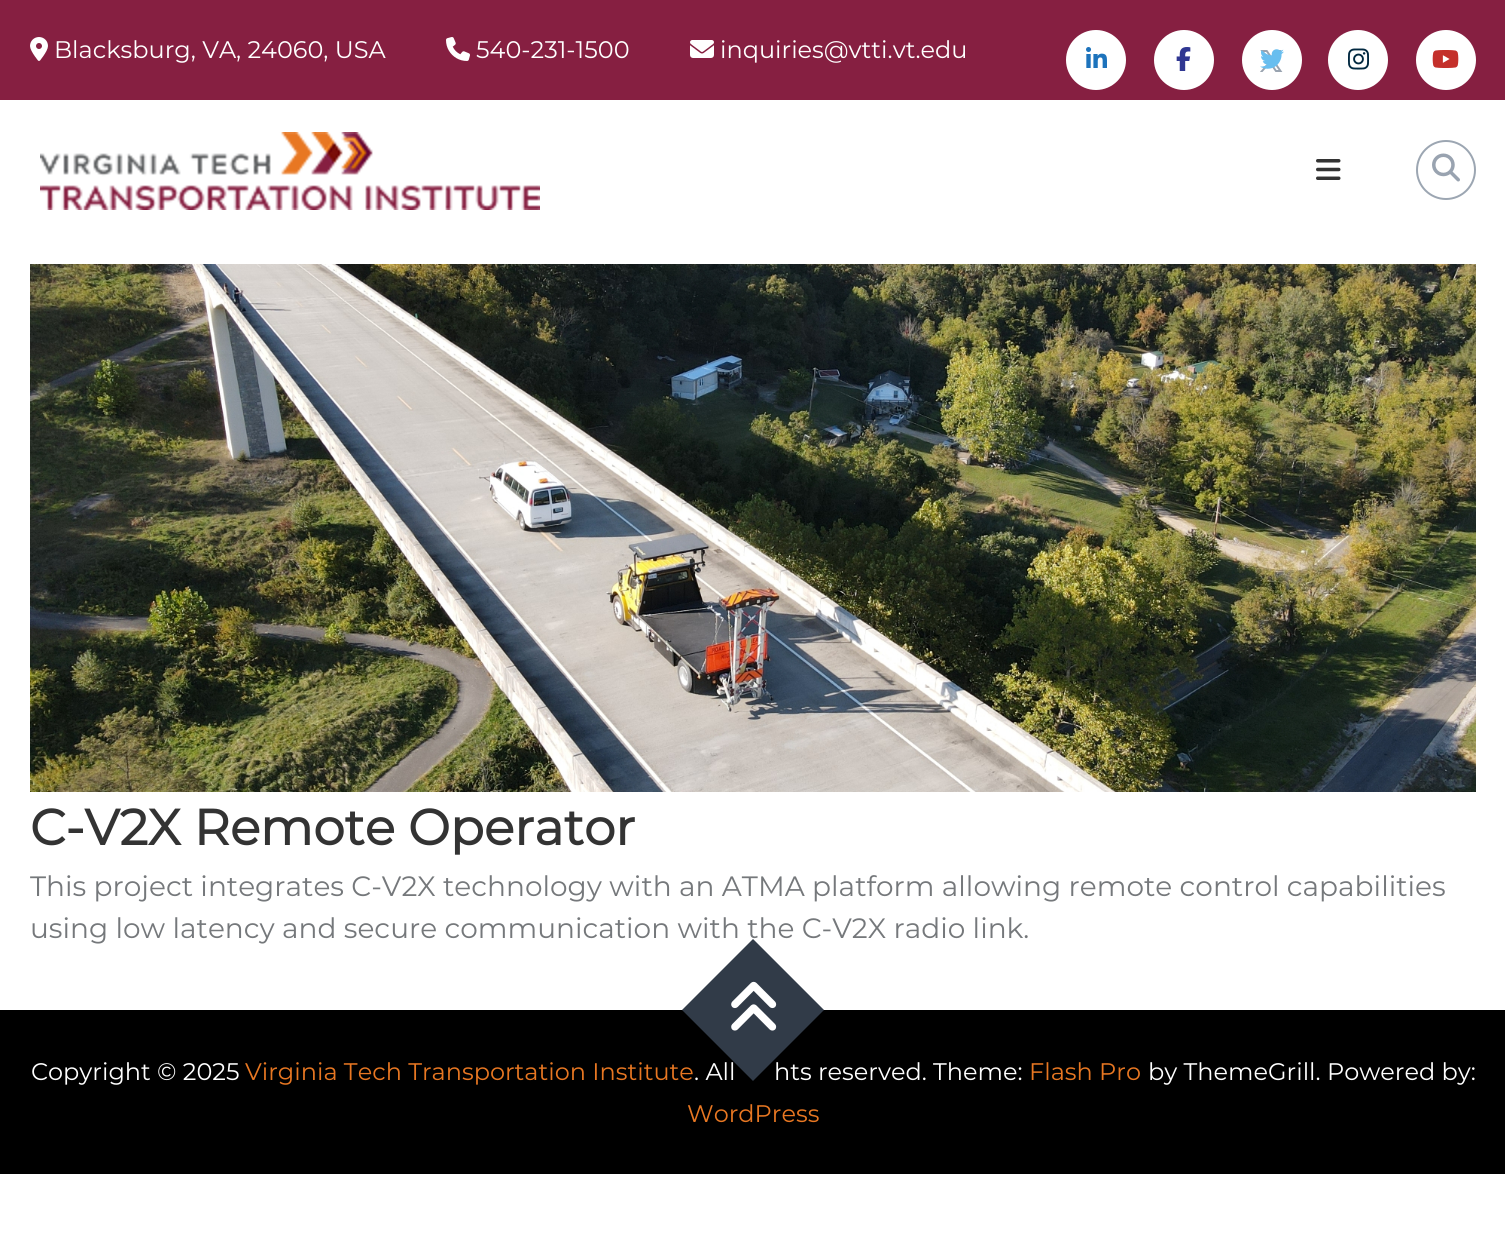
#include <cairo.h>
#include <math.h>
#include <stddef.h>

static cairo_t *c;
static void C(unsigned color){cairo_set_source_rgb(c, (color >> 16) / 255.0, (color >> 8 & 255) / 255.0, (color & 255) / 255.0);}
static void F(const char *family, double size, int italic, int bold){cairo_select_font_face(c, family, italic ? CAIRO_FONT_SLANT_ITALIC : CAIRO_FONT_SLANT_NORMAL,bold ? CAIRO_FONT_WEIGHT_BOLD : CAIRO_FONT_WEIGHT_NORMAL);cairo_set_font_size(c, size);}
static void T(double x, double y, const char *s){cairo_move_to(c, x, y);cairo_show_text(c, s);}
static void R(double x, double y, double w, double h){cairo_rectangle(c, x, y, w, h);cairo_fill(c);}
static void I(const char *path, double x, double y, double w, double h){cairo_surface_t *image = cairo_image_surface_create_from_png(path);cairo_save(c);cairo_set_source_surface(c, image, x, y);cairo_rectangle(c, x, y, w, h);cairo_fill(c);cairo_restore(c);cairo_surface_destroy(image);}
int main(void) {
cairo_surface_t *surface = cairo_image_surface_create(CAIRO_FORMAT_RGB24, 1505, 1258);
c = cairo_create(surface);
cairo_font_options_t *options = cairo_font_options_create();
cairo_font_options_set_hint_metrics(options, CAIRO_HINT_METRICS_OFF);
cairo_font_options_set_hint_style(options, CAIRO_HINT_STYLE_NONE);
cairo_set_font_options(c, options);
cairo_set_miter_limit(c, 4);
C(0xffffff);
cairo_paint(c);
C(0x861f41);
R(0,0,1505,100);
I("1.png",30,37,18,24);
F("Montserrat",24,0,0);
C(0xffffff);
T(54,58,"Blacksburg, VA, 24060, USA");
I("2.png",446,37,24,24);
T(476,58,"540-231-1500");
I("3.png",690,40,24,18);
T(720,58,"inquiries@vtti.vt.edu");
cairo_new_path(c);
cairo_arc(c,1096,60,30,0,2 * M_PI);
cairo_fill(c);
I("4.png",1086,47,21,21);
cairo_arc(c,1184,60,30,0,2 * M_PI);
cairo_fill(c);
I("5.png",1176,47,15,24);
cairo_arc(c,1272,60,30,0,2 * M_PI);
cairo_fill(c);
I("6.png",1260,50,23,22);
I("7.png",1260,49,24,20);
cairo_arc(c,1358,60,30,0,2 * M_PI);
cairo_fill(c);
I("8.png",1348,48,21,22);
cairo_arc(c,1446,60,30,0,2 * M_PI);
cairo_fill(c);
I("9.png",1432,50,27,18);
I("10.png",40,132,500,78);
I("11.png",1316,159,25,21);
cairo_arc(c,1446,170,29,0,2 * M_PI);
C(0x9ca6b2);
cairo_stroke(c);
I("12.png",1432,153,28,29);
I("13.png",30,264,1446,528);
F("Montserrat",50,0,1);
C(0x333333);
T(30,845,"C-V2X Remote Operator");
F("Montserrat",28,0,0);
C(0x75787b);
T(30,896,"This project integrates C-V2X technology with an ATMA platform allowing remote control capabilities");
T(30,938,"using low latency and secure communication with the C-V2X radio link.");
C(0x000000);
R(0,1010,1505,164);
F("Montserrat",24,0,0);
C(0xe87722);
T(245,1080,"Virginia Tech Transportation Institute");
C(0xffffff);
T(694,1080,". All");
T(774,1080,"hts reserved. Theme:");
C(0x313b48);
cairo_new_path(c);
cairo_move_to(c,753,939);
cairo_line_to(c,824,1010);
cairo_line_to(c,753,1081);
cairo_line_to(c,682,1010);
cairo_close_path(c);
cairo_fill(c);
I("14.png",731,981,46,50);
C(0xffffff);
T(31,1080,"Copyright © 2025");
C(0xe87722);
T(1029,1080,"Flash Pro");
C(0xffffff);
T(1148,1080,"by ThemeGrill. Powered by:");
C(0xe87722);
T(687,1122,"WordPress");
cairo_surface_write_to_png(surface, "o.png");
cairo_font_options_destroy(options);
cairo_destroy(c);
cairo_surface_destroy(surface);
return 0;
}
